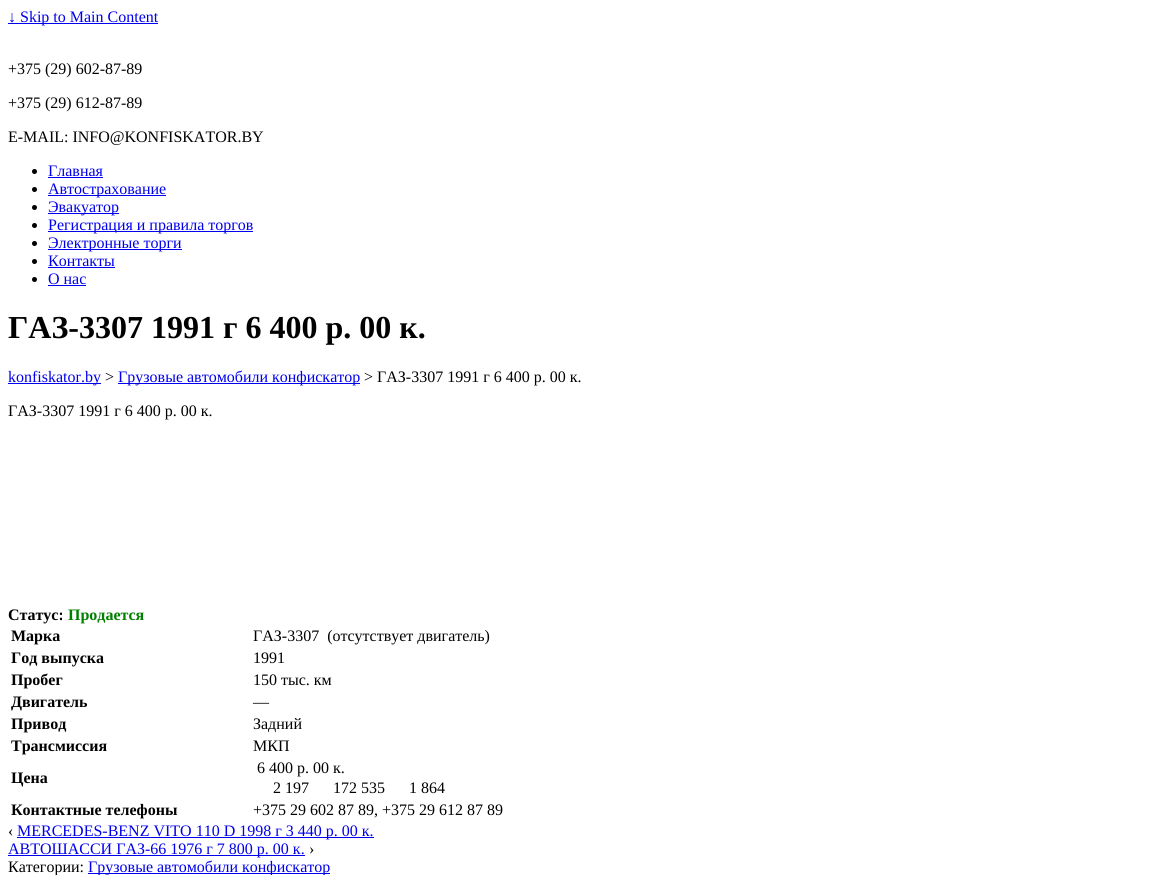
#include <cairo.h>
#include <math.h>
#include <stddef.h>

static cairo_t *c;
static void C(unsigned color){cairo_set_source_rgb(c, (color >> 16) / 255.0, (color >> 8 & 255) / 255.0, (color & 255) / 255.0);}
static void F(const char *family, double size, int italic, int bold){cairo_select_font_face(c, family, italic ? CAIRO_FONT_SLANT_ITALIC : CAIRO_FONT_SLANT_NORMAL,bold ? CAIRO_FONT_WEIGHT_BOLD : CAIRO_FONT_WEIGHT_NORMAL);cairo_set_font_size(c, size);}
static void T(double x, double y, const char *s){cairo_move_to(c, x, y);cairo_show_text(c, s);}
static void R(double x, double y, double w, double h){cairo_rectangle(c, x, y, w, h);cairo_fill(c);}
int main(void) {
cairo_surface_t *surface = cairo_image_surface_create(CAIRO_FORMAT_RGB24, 1153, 875);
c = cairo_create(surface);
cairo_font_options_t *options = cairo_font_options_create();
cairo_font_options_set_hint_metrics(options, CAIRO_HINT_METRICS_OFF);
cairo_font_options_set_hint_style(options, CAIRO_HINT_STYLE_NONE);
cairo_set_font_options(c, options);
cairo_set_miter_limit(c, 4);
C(0xffffff);
cairo_paint(c);
C(0x0000ee);
R(8,23,150,1);
F("Liberation Serif",16,0,0);
T(8,22,"↓ Skip to Main Content");
C(0x000000);
T(8,74,"+375 (29) 602-87-89");
T(8,108,"+375 (29) 612-87-89");
T(8,142,"E-MAIL: INFO@KONFISKATOR.BY");
cairo_new_path(c);
cairo_arc(c,34.5,171.5,2.5,0,2 * M_PI);
cairo_fill(c);
C(0x0000ee);
T(48,176,"Главная");
R(48,177,55,1);
C(0x000000);
cairo_new_path(c);
cairo_arc(c,34.5,189.5,2.5,0,2 * M_PI);
cairo_fill(c);
C(0x0000ee);
R(48,195,118,1);
T(48,194,"Автострахование");
C(0x000000);
cairo_new_path(c);
cairo_arc(c,34.5,207.5,2.5,0,2 * M_PI);
cairo_fill(c);
C(0x0000ee);
R(48,213,71,1);
T(48,212,"Эвакуатор");
C(0x000000);
cairo_new_path(c);
cairo_arc(c,34.5,225.5,2.5,0,2 * M_PI);
cairo_fill(c);
C(0x0000ee);
R(48,231,205,1);
T(48,230,"Регистрация и правила торгов");
C(0x000000);
cairo_new_path(c);
cairo_arc(c,34.5,243.5,2.5,0,2 * M_PI);
cairo_fill(c);
C(0x0000ee);
R(48,249,134,1);
T(48,248,"Электронные торги");
C(0x000000);
cairo_new_path(c);
cairo_arc(c,34.5,261.5,2.5,0,2 * M_PI);
cairo_fill(c);
C(0x0000ee);
T(48,266,"Контакты");
R(48,267,67,1);
C(0x000000);
cairo_new_path(c);
cairo_arc(c,34.5,279.5,2.5,0,2 * M_PI);
cairo_fill(c);
C(0x0000ee);
T(48,284,"О нас");
R(48,285,38,1);
F("Liberation Serif",32,0,1);
C(0x000000);
T(8,338,"ГАЗ-3307 1991 г 6 400 р. 00 к.");
C(0x0000ee);
R(8,383,93,1);
F("Liberation Serif",16,0,0);
T(8,382,"konfiskator.by");
C(0x000000);
T(105,382,">");
C(0x0000ee);
R(118,383,242,1);
T(118,382,"Грузовые автомобили конфискатор");
C(0x000000);
T(364,382,"> ГАЗ-3307 1991 г 6 400 р. 00 к.");
T(8,416,"ГАЗ-3307 1991 г 6 400 р. 00 к.");
F("Liberation Serif",16,0,1);
T(8,620,"Статус:");
C(0x008000);
T(68,620,"Продается");
C(0x000000);
T(11,641,"Марка");
F("Liberation Serif",16,0,0);
T(253,641,"ГАЗ-3307  (отсутствует двигатель)");
F("Liberation Serif",16,0,1);
T(11,663,"Год выпуска");
F("Liberation Serif",16,0,0);
T(253,663,"1991");
F("Liberation Serif",16,0,1);
T(11,685,"Пробег");
F("Liberation Serif",16,0,0);
T(253,685,"150 тыс. км");
F("Liberation Serif",16,0,1);
T(11,707,"Двигатель");
F("Liberation Serif",16,0,0);
T(253,707,"—");
F("Liberation Serif",16,0,1);
T(11,729,"Привод");
F("Liberation Serif",16,0,0);
T(253,729,"Задний");
F("Liberation Serif",16,0,1);
T(11,751,"Трансмиссия");
F("Liberation Serif",16,0,0);
T(253,751,"МКП");
F("Liberation Serif",16,0,1);
T(11,783,"Цена");
F("Liberation Serif",16,0,0);
T(257,773,"6 400 р. 00 к.");
T(273,793,"2 197");
T(333,793,"172 535");
T(409,793,"1 864");
F("Liberation Serif",16,0,1);
T(11,815,"Контактные телефоны");
F("Liberation Serif",16,0,0);
T(253,815,"+375 29 602 87 89, +375 29 612 87 89");
T(8,836,"‹");
C(0x0000ee);
R(17,837,357,1);
T(17,836,"MERCEDES-BENZ VITO 110 D 1998 г 3 440 р. 00 к.");
R(8,855,297,1);
T(8,854,"АВТОШАССИ ГАЗ-66 1976 г 7 800 р. 00 к.");
C(0x000000);
T(309,854,"›");
T(8,872,"Категории:");
C(0x0000ee);
R(88,873,242,1);
T(88,872,"Грузовые автомобили конфискатор");
cairo_surface_write_to_png(surface, "o.png");
cairo_font_options_destroy(options);
cairo_destroy(c);
cairo_surface_destroy(surface);
return 0;
}
